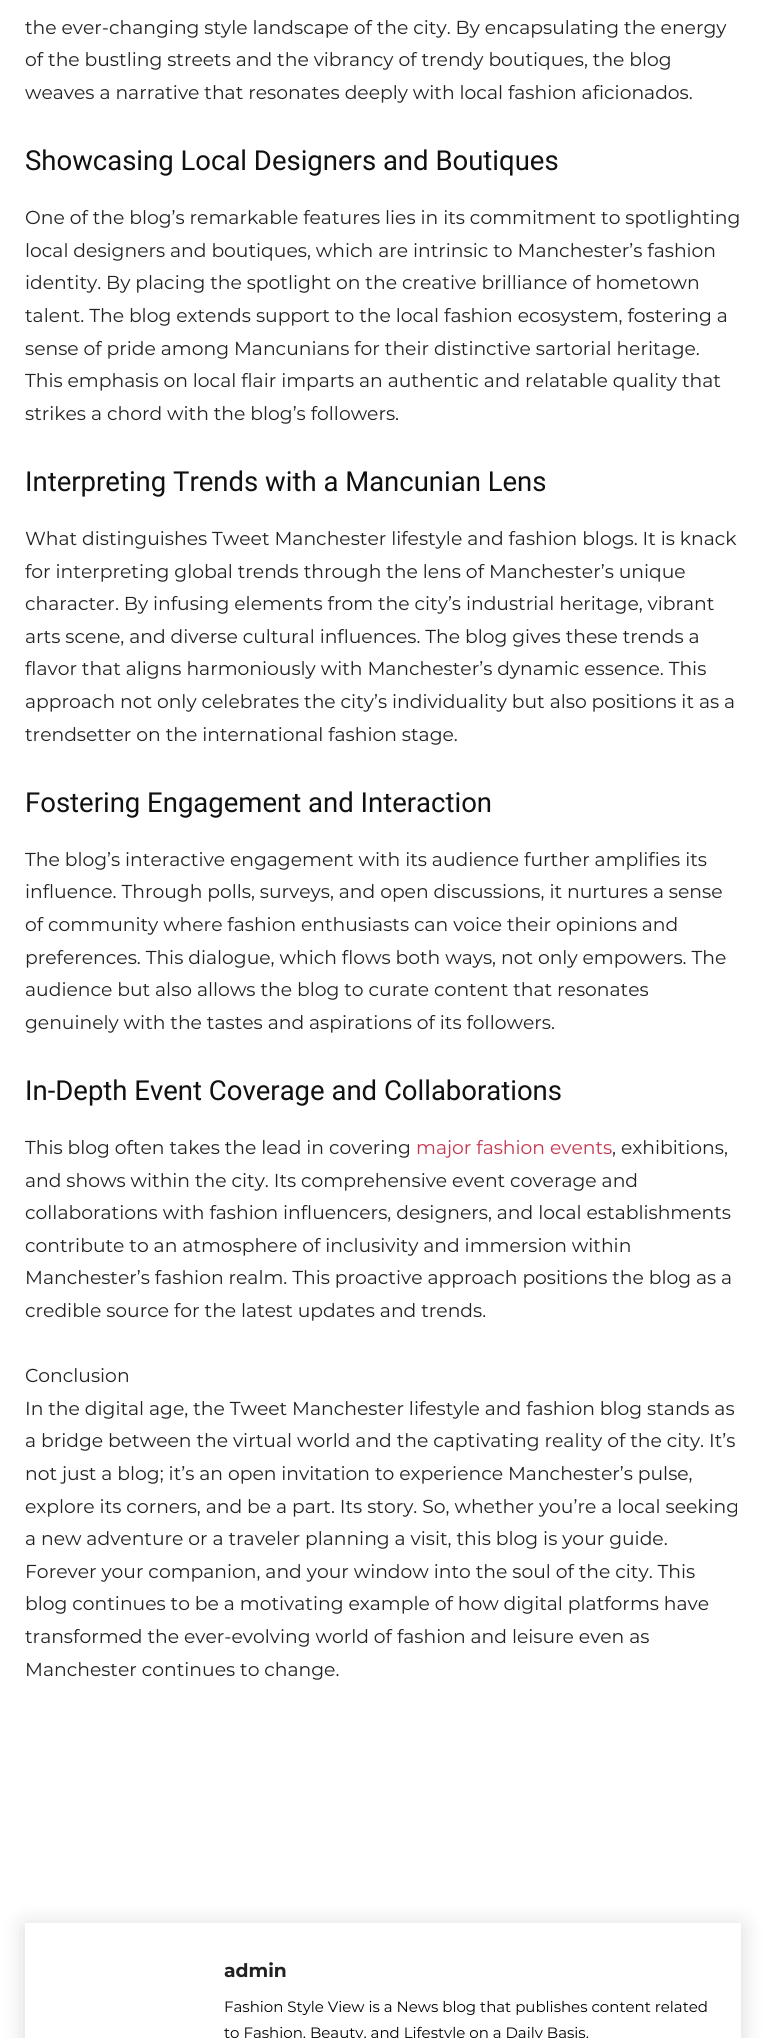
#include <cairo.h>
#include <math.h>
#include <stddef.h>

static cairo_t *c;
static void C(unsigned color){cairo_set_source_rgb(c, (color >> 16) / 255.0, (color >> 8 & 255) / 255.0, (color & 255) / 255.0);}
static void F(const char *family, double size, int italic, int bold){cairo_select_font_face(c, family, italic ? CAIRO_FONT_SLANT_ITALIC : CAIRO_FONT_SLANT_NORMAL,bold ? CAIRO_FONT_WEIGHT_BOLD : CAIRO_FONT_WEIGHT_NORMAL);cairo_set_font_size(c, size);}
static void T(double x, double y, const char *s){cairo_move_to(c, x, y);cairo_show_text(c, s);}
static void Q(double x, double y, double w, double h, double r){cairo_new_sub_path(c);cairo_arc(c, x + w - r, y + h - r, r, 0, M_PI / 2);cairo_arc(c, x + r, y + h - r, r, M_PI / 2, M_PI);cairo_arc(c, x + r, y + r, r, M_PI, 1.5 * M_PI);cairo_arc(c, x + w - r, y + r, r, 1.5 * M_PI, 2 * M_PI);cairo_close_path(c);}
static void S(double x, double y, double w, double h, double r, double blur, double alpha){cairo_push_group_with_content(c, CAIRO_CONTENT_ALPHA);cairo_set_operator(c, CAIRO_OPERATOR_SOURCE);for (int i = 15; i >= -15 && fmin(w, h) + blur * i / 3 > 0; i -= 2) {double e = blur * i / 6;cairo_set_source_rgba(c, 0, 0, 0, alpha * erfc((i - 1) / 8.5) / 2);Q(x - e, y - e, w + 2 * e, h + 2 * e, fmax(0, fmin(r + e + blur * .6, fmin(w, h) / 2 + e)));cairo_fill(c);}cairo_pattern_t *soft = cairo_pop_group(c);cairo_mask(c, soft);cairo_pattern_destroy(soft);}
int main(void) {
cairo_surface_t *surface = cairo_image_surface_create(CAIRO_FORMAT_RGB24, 766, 2038);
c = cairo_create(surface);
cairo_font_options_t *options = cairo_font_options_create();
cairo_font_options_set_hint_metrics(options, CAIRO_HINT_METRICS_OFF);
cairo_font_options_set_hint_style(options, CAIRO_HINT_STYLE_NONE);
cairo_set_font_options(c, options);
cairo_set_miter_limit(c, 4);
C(0xffffff);
cairo_paint(c);
F("Montserrat",18.75,0,0);
C(0x222222);
T(25,34,"the ever-changing style landscape of the city. By encapsulating the energy");
T(25,66,"of the bustling streets and the vibrancy of trendy boutiques, the blog");
T(25,99,"weaves a narrative that resonates deeply with local fashion aficionados.");
F("Roboto",27.5,0,0);
C(0x111111);
T(25,170,"Showcasing Local Designers and Boutiques");
F("Montserrat",18.75,0,0);
C(0x222222);
T(25,224,"One of the blog’s remarkable features lies in its commitment to spotlighting");
T(25,257,"local designers and boutiques, which are intrinsic to Manchester’s fashion");
T(25,289,"identity. By placing the spotlight on the creative brilliance of hometown");
T(25,322,"talent. The blog extends support to the local fashion ecosystem, fostering a");
T(25,355,"sense of pride among Mancunians for their distinctive sartorial heritage.");
T(25,387,"This emphasis on local flair imparts an authentic and relatable quality that");
T(25,420,"strikes a chord with the blog’s followers.");
F("Roboto",27.5,0,0);
C(0x111111);
T(25,491,"Interpreting Trends with a Mancunian Lens");
F("Montserrat",18.75,0,0);
C(0x222222);
T(25,545,"What distinguishes Tweet Manchester lifestyle and fashion blogs. It is knack");
T(25,578,"for interpreting global trends through the lens of Manchester’s unique");
T(25,610,"character. By infusing elements from the city’s industrial heritage, vibrant");
T(25,643,"arts scene, and diverse cultural influences. The blog gives these trends a");
T(25,675,"flavor that aligns harmoniously with Manchester’s dynamic essence. This");
T(25,708,"approach not only celebrates the city’s individuality but also positions it as a");
T(25,741,"trendsetter on the international fashion stage.");
F("Roboto",27.5,0,0);
C(0x111111);
T(25,812,"Fostering Engagement and Interaction");
F("Montserrat",18.75,0,0);
C(0x222222);
T(25,866,"The blog’s interactive engagement with its audience further amplifies its");
T(25,898,"influence. Through polls, surveys, and open discussions, it nurtures a sense");
T(25,931,"of community where fashion enthusiasts can voice their opinions and");
T(25,964,"preferences. This dialogue, which flows both ways, not only empowers. The");
T(25,996,"audience but also allows the blog to curate content that resonates");
T(25,1029,"genuinely with the tastes and aspirations of its followers.");
F("Roboto",27.5,0,0);
C(0x111111);
T(25,1100,"In-Depth Event Coverage and Collaborations");
F("Montserrat",18.75,0,0);
C(0x222222);
T(25,1154,"This blog often takes the lead in covering");
C(0xc4364e);
T(416,1154,"major fashion events");
C(0x222222);
T(612,1154,", exhibitions,");
T(25,1187,"and shows within the city. Its comprehensive event coverage and");
T(25,1219,"collaborations with fashion influencers, designers, and local establishments");
T(25,1252,"contribute to an atmosphere of inclusivity and immersion within");
T(25,1284,"Manchester’s fashion realm. This proactive approach positions the blog as a");
T(25,1317,"credible source for the latest updates and trends.");
T(25,1382,"Conclusion");
T(25,1415,"In the digital age, the Tweet Manchester lifestyle and fashion blog stands as");
T(25,1447,"a bridge between the virtual world and the captivating reality of the city. It’s");
T(25,1480,"not just a blog; it’s an open invitation to experience Manchester’s pulse,");
T(25,1513,"explore its corners, and be a part. Its story. So, whether you’re a local seeking");
T(25,1545,"a new adventure or a traveler planning a visit, this blog is your guide.");
T(25,1578,"Forever your companion, and your window into the soul of the city. This");
T(25,1610,"blog continues to be a motivating example of how digital platforms have");
T(25,1643,"transformed the ever-evolving world of fashion and leisure even as");
T(25,1676,"Manchester continues to change.");
cairo_save(c);
cairo_set_fill_rule(c,CAIRO_FILL_RULE_EVEN_ODD);
cairo_new_path(c);
cairo_move_to(c,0,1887);
cairo_line_to(c,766,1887);
cairo_line_to(c,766,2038);
cairo_line_to(c,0,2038);
cairo_close_path(c);
cairo_move_to(c,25,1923);
cairo_line_to(c,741,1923);
cairo_line_to(c,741,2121);
cairo_line_to(c,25,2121);
cairo_close_path(c);
cairo_clip(c);
C(0x000000);
S(25,1926,716,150,0,12.5,.15);
cairo_restore(c);
F("Montserrat",18.75,0,1);
T(224,1977,"admin");
F("Montserrat",15,0,0);
C(0x000000);
T(224,2012,"Fashion Style View is a News blog that publishes content related");
T(224,2038,"to Fashion, Beauty, and Lifestyle on a Daily Basis.");
cairo_surface_write_to_png(surface, "o.png");
cairo_font_options_destroy(options);
cairo_destroy(c);
cairo_surface_destroy(surface);
return 0;
}
